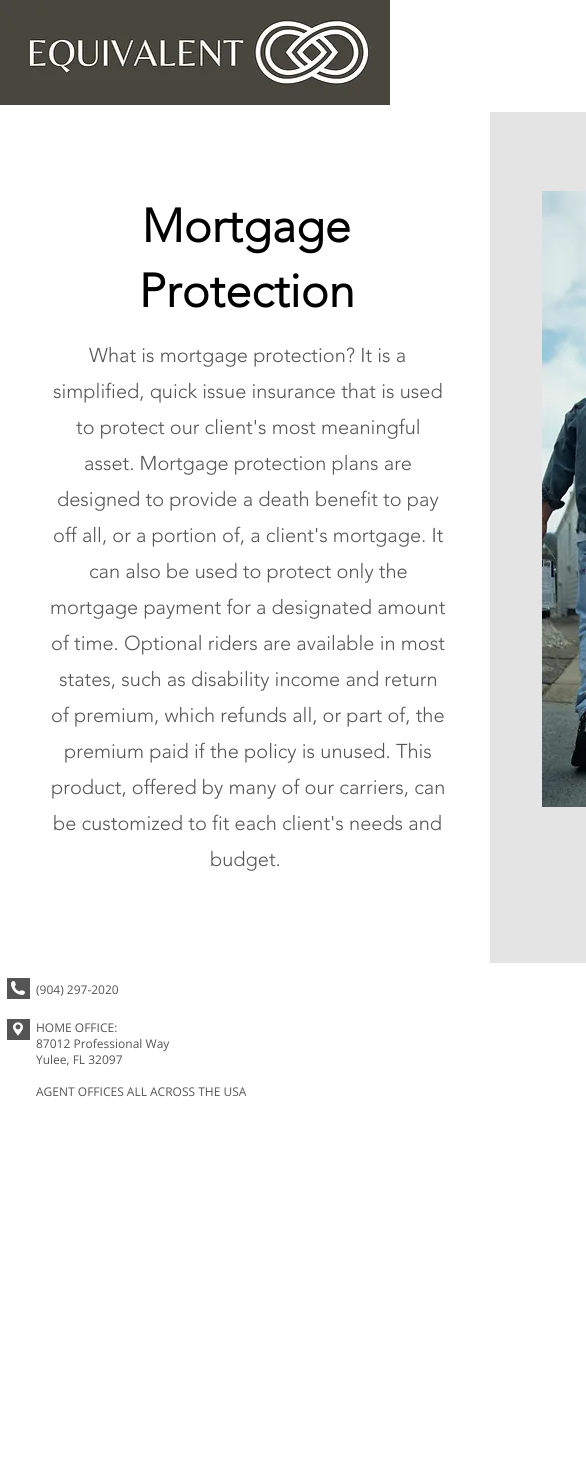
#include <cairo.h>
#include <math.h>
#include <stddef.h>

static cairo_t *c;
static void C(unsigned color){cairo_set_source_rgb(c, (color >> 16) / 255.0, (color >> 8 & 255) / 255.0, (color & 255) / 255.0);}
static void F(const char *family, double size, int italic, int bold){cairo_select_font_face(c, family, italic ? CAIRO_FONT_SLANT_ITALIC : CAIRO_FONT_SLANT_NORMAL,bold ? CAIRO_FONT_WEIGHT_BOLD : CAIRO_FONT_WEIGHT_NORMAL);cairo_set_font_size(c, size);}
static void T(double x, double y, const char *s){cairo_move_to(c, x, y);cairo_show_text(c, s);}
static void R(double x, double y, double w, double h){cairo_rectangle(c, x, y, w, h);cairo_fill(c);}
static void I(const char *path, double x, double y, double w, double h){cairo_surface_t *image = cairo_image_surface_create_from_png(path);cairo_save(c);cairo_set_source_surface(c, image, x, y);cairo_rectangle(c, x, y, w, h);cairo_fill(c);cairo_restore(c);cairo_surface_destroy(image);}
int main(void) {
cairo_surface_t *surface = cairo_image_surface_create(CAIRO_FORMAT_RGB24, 586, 1460);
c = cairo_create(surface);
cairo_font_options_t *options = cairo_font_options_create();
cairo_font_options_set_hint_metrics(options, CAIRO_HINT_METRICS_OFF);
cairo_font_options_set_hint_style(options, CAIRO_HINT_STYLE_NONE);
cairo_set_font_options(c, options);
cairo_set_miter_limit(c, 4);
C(0xffffff);
cairo_paint(c);
I("1.png",0,0,390,105);
F("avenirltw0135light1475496",47,0,1);
C(0x000000);
T(142,242,"Mortgage");
T(139,307,"Protection");
F("avenirltw0135light1475496 Light",20,0,0);
C(0x555555);
T(89,362,"What is mortgage protection? It is a");
T(53,398,"simplified, quick issue insurance that is used");
T(76,434,"to protect our client's most meaningful");
T(84,470,"asset. Mortgage protection plans are");
T(57,506,"designed to provide a death benefit to pay");
T(53,542,"off all, or a portion of, a client's mortgage. It");
T(89,578,"can also be used to protect only the");
T(50,614,"mortgage payment for a designated amount");
T(51,650,"of time. Optional riders are available in most");
T(59,686,"states, such as disability income and return");
T(51,722,"of premium, which refunds all, or part of, the");
T(64,758,"premium paid if the policy is unused. This");
T(51,794,"product, offered by many of our carriers, can");
T(53,830,"be customized to fit each client's needs and");
T(210,866,"budget.");
C(0xe4e4e4);
R(490,112,96,851);
I("2.png",542,191,44,616);
C(0x555555);
R(7,978,23,21);
I("3.png",11,981,14,14);
F("Open Sans",12,0,0);
T(36,994,"(904) 297-2020");
R(7,1019,23,21);
I("4.png",13,1022,10,14);
T(36,1032,"HOME OFFICE:");
T(36,1048,"87012 Professional Way");
T(36,1064,"Yulee, FL 32097");
T(36,1096,"AGENT OFFICES ALL ACROSS THE USA");
cairo_surface_write_to_png(surface, "o.png");
cairo_font_options_destroy(options);
cairo_destroy(c);
cairo_surface_destroy(surface);
return 0;
}
